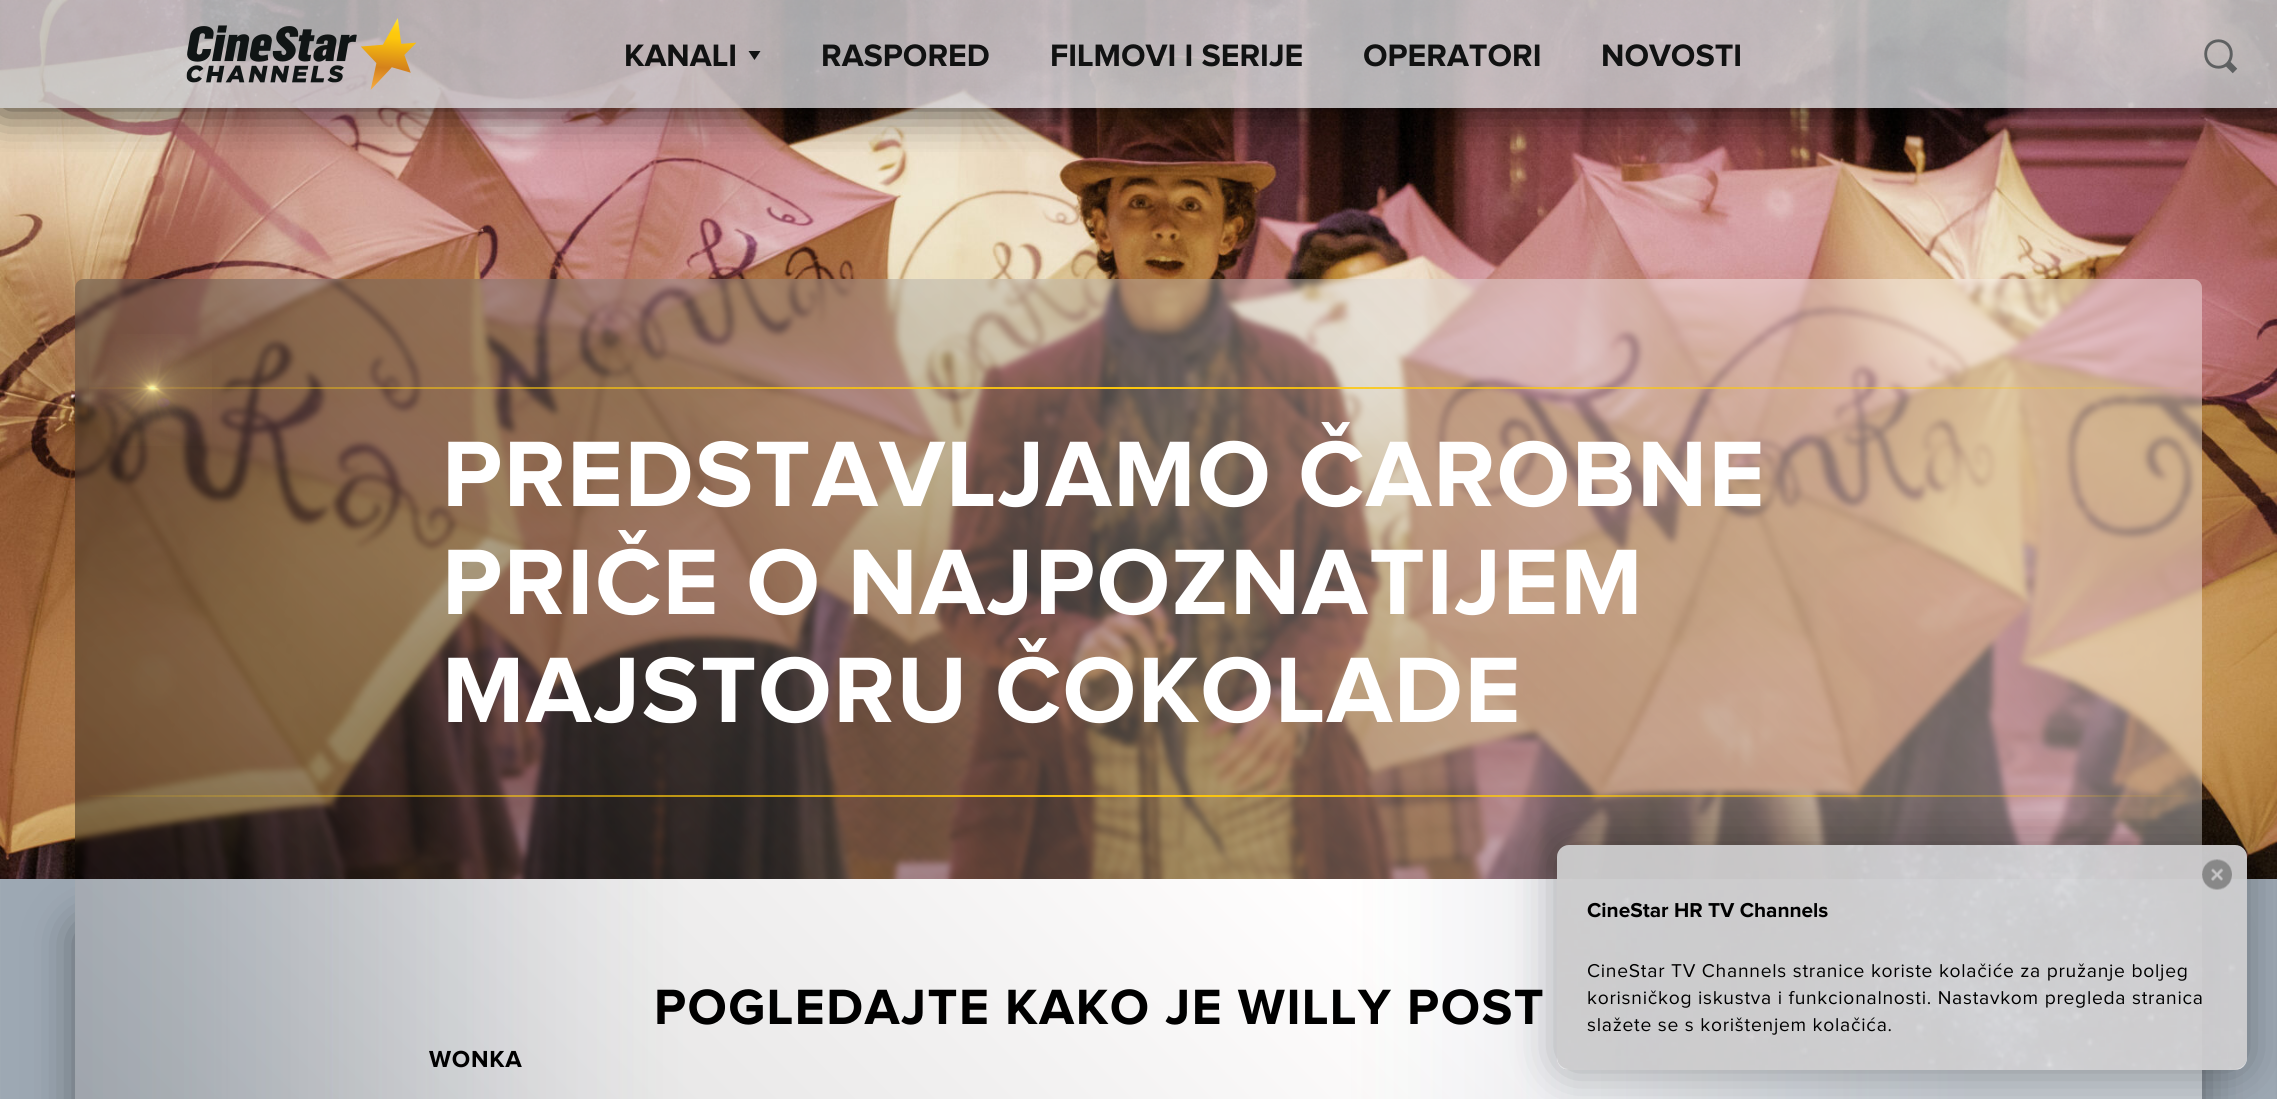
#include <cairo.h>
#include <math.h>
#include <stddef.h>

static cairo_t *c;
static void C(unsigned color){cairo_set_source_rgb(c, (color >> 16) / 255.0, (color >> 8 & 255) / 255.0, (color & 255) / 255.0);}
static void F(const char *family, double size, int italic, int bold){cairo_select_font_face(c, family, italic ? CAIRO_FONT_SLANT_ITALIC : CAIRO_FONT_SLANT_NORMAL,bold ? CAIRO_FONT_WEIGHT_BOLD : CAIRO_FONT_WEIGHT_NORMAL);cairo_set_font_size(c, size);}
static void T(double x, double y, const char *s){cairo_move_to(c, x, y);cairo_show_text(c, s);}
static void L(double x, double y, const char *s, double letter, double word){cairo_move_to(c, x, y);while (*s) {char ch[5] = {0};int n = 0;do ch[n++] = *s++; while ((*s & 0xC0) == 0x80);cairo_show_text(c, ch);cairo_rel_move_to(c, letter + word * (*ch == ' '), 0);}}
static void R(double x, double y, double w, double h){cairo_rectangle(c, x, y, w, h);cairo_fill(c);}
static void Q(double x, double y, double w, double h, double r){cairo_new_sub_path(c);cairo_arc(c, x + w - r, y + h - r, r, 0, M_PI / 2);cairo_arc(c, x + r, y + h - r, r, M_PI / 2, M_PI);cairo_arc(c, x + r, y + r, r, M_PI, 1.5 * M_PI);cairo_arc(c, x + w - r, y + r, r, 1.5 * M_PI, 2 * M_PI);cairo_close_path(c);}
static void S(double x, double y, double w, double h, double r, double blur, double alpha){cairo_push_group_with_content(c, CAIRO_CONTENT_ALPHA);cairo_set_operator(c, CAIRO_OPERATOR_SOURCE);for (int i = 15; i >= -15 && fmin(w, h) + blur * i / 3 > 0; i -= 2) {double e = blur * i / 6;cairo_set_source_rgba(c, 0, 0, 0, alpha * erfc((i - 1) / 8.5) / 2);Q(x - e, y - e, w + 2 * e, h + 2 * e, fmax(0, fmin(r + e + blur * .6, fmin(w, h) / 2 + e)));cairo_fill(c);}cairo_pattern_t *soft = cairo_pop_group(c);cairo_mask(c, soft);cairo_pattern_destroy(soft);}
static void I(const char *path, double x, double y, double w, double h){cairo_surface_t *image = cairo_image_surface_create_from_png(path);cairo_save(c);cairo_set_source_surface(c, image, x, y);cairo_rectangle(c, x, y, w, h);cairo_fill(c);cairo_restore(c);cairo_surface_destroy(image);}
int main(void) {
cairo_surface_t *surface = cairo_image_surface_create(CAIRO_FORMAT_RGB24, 2277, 1099);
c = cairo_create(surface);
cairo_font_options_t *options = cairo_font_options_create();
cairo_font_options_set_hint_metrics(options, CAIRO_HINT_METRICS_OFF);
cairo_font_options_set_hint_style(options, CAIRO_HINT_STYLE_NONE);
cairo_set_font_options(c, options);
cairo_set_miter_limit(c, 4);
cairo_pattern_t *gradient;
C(0xffffff);
cairo_paint(c);
I("1.png",0,879,2277,220);
cairo_save(c);
cairo_set_fill_rule(c,CAIRO_FILL_RULE_EVEN_ODD);
cairo_new_path(c);
cairo_move_to(c,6,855);
cairo_line_to(c,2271,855);
cairo_line_to(c,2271,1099);
cairo_line_to(c,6,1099);
cairo_close_path(c);
cairo_move_to(c,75,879);
cairo_line_to(c,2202,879);
cairo_line_to(c,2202,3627);
cairo_curve_to(c,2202,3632,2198,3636,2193,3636);
cairo_line_to(c,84,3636);
cairo_curve_to(c,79,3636,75,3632,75,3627);
cairo_close_path(c);
cairo_clip(c);
C(0x000000);
S(75,924,2127,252,9,22.5,.4);
cairo_restore(c);
I("5.png",0,0,2277,879);
cairo_save(c);
cairo_rectangle(c,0,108,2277,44);
cairo_clip(c);
C(0x000000);
S(0,0,2277,108,0,22.5,.8);
cairo_restore(c);
cairo_set_source_rgba(c,1,1,1,0.8);
R(0,0,2277,108);
I("2.png",0,0,2277,108);
I("3.png",186,18,231,72);
F("Proxima Nova",30,0,1);
C(0x111212);
T(624,66,"KANALI");
cairo_new_path(c);
cairo_move_to(c,748.5,51);
cairo_line_to(c,760.5,51);
cairo_line_to(c,754.5,60);
cairo_close_path(c);
cairo_fill(c);
T(821,66,"RASPORED");
T(1050,66,"FILMOVI I SERIJE");
T(1363,66,"OPERATORI");
T(1601,66,"NOVOSTI");
I("4.png",2204,39,34,35);
I("6.png",75,279,2127,600);
I("8.png",342,875,1797,4);
I("9.png",510,877,1624,2);
gradient = cairo_pattern_create_linear(457,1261,1820,-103);
cairo_pattern_add_color_stop_rgba(gradient,0,0,0,0,.4);
cairo_pattern_add_color_stop_rgba(gradient,.82,1,0.988,0.988,.4);
cairo_pattern_add_color_stop_rgba(gradient,.84,1,0.988,0.988,.4);
cairo_set_source(c,gradient);
cairo_pattern_destroy(gradient);
cairo_new_path(c);
cairo_move_to(c,84,279);
cairo_line_to(c,2193,279);
cairo_curve_to(c,2198,279,2202,283,2202,288);
cairo_line_to(c,2202,879);
cairo_line_to(c,75,879);
cairo_line_to(c,75,288);
cairo_curve_to(c,75,283,79,279,84,279);
cairo_close_path(c);
cairo_fill(c);
gradient = cairo_pattern_create_linear(75,388,2202,388);
cairo_pattern_add_color_stop_rgba(gradient,0,0.992,0.784,0.051,0);
cairo_pattern_add_color_stop_rgba(gradient,.15,0.992,0.784,0.051,.5);
cairo_pattern_add_color_stop_rgba(gradient,.5,0.992,0.784,0.051,1);
cairo_pattern_add_color_stop_rgba(gradient,.85,0.992,0.784,0.051,.5);
cairo_pattern_add_color_stop_rgba(gradient,1,0.992,0.784,0.051,0);
cairo_set_source(c,gradient);
cairo_pattern_destroy(gradient);
R(89,387,2099,2);
I("7.png",89,334,123,112);
F("Proxima Nova",90,0,1);
C(0xffffff);
L(442,506,"PREDSTAVLJAMO ČAROBNE",1.5,0);
L(442,614,"PRIČE O NAJPOZNATIJEM",1.5,0);
L(442,722,"MAJSTORU ČOKOLADE",1.5,0);
gradient = cairo_pattern_create_linear(75,796,2202,796);
cairo_pattern_add_color_stop_rgba(gradient,0,0.992,0.784,0.051,0);
cairo_pattern_add_color_stop_rgba(gradient,.15,0.992,0.784,0.051,.5);
cairo_pattern_add_color_stop_rgba(gradient,.5,0.992,0.784,0.051,1);
cairo_pattern_add_color_stop_rgba(gradient,.85,0.992,0.784,0.051,.5);
cairo_pattern_add_color_stop_rgba(gradient,1,0.992,0.784,0.051,0);
cairo_set_source(c,gradient);
cairo_pattern_destroy(gradient);
R(89,795,2099,2);
F("Proxima Nova",48,0,1);
C(0x000000);
L(654,1024,"POGLEDAJTE KAKO JE WILLY POST",1.5,0);
F("Proxima Nova",22.5,0,1);
L(429,1067,"WONKA",.75,0);
cairo_save(c);
cairo_set_fill_rule(c,CAIRO_FILL_RULE_EVEN_ODD);
cairo_new_path(c);
cairo_move_to(c,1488,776);
cairo_line_to(c,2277,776);
cairo_line_to(c,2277,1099);
cairo_line_to(c,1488,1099);
cairo_close_path(c);
cairo_move_to(c,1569,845);
cairo_line_to(c,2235,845);
cairo_curve_to(c,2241.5,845,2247,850.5,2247,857);
cairo_line_to(c,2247,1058);
cairo_curve_to(c,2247,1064.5,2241.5,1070,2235,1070);
cairo_line_to(c,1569,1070);
cairo_curve_to(c,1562.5,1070,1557,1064.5,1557,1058);
cairo_line_to(c,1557,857);
cairo_curve_to(c,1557,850.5,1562.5,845,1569,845);
cairo_close_path(c);
cairo_clip(c);
C(0x000000);
S(1557,845,690,225,12,22.5,.3);
cairo_restore(c);
cairo_set_source_rgba(c,1,1,1,0.94);
Q(1557,845,690,225,12);
cairo_fill(c);
I("10.png",1557,845,690,225);
I("11.png",2202,859,30,31);
F("Proxima Nova",19.5,0,1);
C(0x000000);
T(1587,917,"CineStar HR TV Channels");
F("Proxima Nova",18,0,0);
L(1587,977,"CineStar TV Channels stranice koriste kolačiće za pružanje boljeg",.75,0);
L(1587,1004,"korisničkog iskustva i funkcionalnosti. Nastavkom pregleda stranica",.75,0);
L(1587,1031,"slažete se s korištenjem kolačića.",.75,0);
cairo_surface_write_to_png(surface, "o.png");
cairo_font_options_destroy(options);
cairo_destroy(c);
cairo_surface_destroy(surface);
return 0;
}
